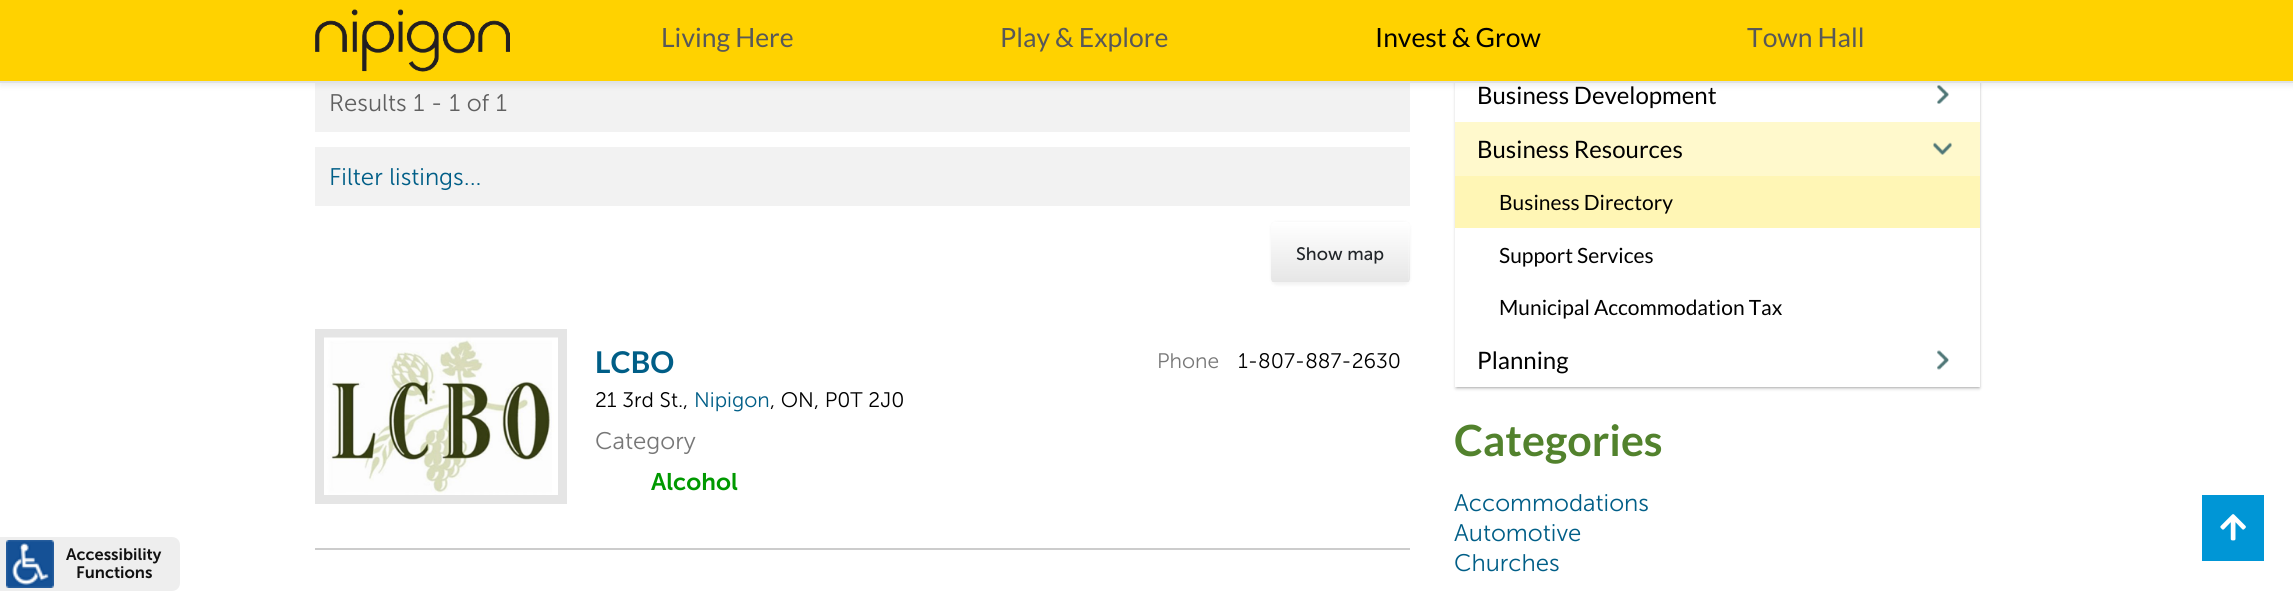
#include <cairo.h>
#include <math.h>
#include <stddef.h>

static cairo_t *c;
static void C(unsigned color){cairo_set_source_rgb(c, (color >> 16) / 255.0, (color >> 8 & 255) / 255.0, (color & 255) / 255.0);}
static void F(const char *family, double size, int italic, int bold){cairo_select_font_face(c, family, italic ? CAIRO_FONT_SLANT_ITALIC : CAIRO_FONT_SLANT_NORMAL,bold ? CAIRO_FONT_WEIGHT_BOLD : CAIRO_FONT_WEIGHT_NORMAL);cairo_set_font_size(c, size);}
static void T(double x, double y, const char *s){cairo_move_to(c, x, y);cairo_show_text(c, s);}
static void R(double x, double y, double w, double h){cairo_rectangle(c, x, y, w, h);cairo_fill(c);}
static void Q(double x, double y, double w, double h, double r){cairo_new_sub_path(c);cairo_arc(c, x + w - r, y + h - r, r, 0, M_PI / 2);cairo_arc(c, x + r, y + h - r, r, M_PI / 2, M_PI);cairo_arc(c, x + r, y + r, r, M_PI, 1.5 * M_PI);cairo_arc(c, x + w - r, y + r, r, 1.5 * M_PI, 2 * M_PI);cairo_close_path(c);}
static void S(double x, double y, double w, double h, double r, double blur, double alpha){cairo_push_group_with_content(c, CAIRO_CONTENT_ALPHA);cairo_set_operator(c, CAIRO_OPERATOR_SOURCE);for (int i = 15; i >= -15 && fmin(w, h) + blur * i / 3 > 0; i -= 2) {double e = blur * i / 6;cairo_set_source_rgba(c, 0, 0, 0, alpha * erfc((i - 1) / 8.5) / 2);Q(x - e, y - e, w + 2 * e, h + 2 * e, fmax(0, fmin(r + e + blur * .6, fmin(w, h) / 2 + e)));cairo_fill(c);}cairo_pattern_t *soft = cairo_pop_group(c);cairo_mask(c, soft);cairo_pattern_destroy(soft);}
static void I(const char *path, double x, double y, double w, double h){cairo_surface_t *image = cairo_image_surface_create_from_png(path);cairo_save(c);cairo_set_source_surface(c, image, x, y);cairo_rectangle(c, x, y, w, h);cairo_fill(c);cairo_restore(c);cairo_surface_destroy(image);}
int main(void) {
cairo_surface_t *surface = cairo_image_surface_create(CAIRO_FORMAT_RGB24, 2293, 591);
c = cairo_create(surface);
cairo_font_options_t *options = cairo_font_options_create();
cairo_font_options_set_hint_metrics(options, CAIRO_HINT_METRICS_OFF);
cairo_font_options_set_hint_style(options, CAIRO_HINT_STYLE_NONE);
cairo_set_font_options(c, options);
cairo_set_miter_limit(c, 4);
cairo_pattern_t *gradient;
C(0xffffff);
cairo_paint(c);
C(0xeeeeee);
cairo_new_path(c);
cairo_move_to(c,0,537);
cairo_line_to(c,172,537);
cairo_curve_to(c,176.5,537,180,540.5,180,545);
cairo_line_to(c,180,583);
cairo_curve_to(c,180,587.5,176.5,591,172,591);
cairo_line_to(c,0,591);
cairo_close_path(c);
cairo_fill(c);
I("1.png",6,540,48,48);
F("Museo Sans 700 SemiBold",16.5,0,0);
C(0x111111);
T(66,560,"Accessibility");
T(76,578,"Functions");
C(0xf2f2f2);
R(315,83,1095,49);
cairo_save(c);
cairo_set_fill_rule(c,CAIRO_FILL_RULE_EVEN_ODD);
cairo_new_path(c);
cairo_move_to(c,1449,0);
cairo_line_to(c,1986,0);
cairo_line_to(c,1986,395);
cairo_line_to(c,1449,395);
cairo_close_path(c);
cairo_move_to(c,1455,-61);
cairo_line_to(c,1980,-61);
cairo_line_to(c,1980,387);
cairo_line_to(c,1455,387);
cairo_close_path(c);
cairo_clip(c);
C(0x000000);
S(1455,-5,525,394,0,1.5,.1);
cairo_restore(c);
cairo_save(c);
cairo_set_fill_rule(c,CAIRO_FILL_RULE_EVEN_ODD);
cairo_new_path(c);
cairo_move_to(c,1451,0);
cairo_line_to(c,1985,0);
cairo_line_to(c,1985,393);
cairo_line_to(c,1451,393);
cairo_close_path(c);
cairo_move_to(c,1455,-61);
cairo_line_to(c,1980,-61);
cairo_line_to(c,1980,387);
cairo_line_to(c,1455,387);
cairo_close_path(c);
cairo_clip(c);
C(0x000000);
S(1457,-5,522,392,0,1.5,.4);
cairo_restore(c);
I("4.png",1937,85,12,19);
C(0x000000);
S(0,3,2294,83,0,3,.07);
C(0xffd200);
R(0,0,2293,81);
C(0xdee2e6);
R(0,81,2293,2);
I("2.png",315,9,195,63);
F("Lato",26.5,0,0);
C(0x585858);
T(661,47,"Living Here");
T(1000,47,"Play & Explore");
C(0x000000);
T(1375,47,"Invest & Grow");
C(0x585858);
T(1747,47,"Town Hall");
F("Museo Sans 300 Light",24,0,0);
C(0x606060);
T(329,111,"Results 1 - 1 of 1");
C(0xf2f2f2);
R(315,147,1095,59);
C(0x005e87);
T(329,185,"Filter listings...");
C(0x000000);
S(1271,222,139,63,6,1.5,.05);
cairo_save(c);
Q(1271,221,139,63,6);
cairo_clip(c);
gradient = cairo_pattern_create_linear(1340,222,1340,282);
cairo_pattern_add_color_stop_rgba(gradient,0,1,1,1,1);
cairo_pattern_add_color_stop_rgba(gradient,1,0.902,0.902,0.902,1);
cairo_set_source(c,gradient);
cairo_pattern_destroy(gradient);
R(1271,222,139,60);
cairo_restore(c);
cairo_set_source_rgba(c,1,1,1,0.2);
cairo_new_path(c);
cairo_move_to(c,1276,224);
cairo_line_to(c,1404,224);
cairo_curve_to(c,1410,224,1408,234,1408,236);
cairo_line_to(c,1408,280);
cairo_curve_to(c,1409,279,1409,278,1409,277);
cairo_line_to(c,1409,227);
cairo_curve_to(c,1409,224,1407,222,1404,222);
cairo_line_to(c,1277,222);
cairo_curve_to(c,1274,222,1272,224,1272,227);
cairo_line_to(c,1272,228);
cairo_curve_to(c,1272,226,1274,224,1276,224);
cairo_close_path(c);
cairo_fill(c);
F("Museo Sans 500",18,0,0);
C(0x212529);
T(1296,260,"Show map");
C(0xcccccc);
R(315,548,1095,2);
C(0xe5e5e5);
R(315,329,252,175);
I("3.png",324,337,234,158);
F("Lato",30,0,1);
C(0x005e87);
T(595,373,"LCBO");
F("Museo Sans 300 Light",21,0,0);
C(0x000000);
T(595,407,"21 3rd St.,");
C(0x005e87);
T(694,407,"Nipigon");
C(0x000000);
T(770,407,", ON, P0T 2J0");
F("Museo Sans 300 Light",24,0,0);
C(0x777777);
T(595,449,"Category");
F("Museo Sans 700 SemiBold",24,0,0);
C(0x009900);
T(651,490,"Alcohol");
F("Museo Sans 300 Light",21,0,0);
C(0x777777);
T(1157,368,"Phone");
C(0x000000);
T(1238,368,"1-807-887-2630");
F("Lato",24,0,0);
T(1477,104,"Business Development");
C(0xfff9cc);
R(1455,122,525,54);
C(0x000000);
T(1477,158,"Business Resources");
I("5.png",1933,142,19,13);
C(0xfff6b5);
R(1455,176,525,52);
F("Lato",21,0,0);
C(0x000000);
T(1499,210,"Business Directory");
T(1499,263,"Support Services");
T(1499,315,"Municipal Accommodation Tax");
F("Lato",24,0,0);
T(1477,369,"Planning");
I("6.png",1937,350,12,20);
F("Lato",43,0,1);
C(0x52822d);
T(1454,456,"Categories");
F("Museo Sans 300 Light",24,0,0);
C(0x005e87);
T(1454,511,"Accommodations");
T(1454,541,"Automotive");
T(1454,571,"Churches");
C(0x0096d6);
R(2202,495,62,66);
I("7.png",2220,514,26,27);
cairo_surface_write_to_png(surface, "o.png");
cairo_font_options_destroy(options);
cairo_destroy(c);
cairo_surface_destroy(surface);
return 0;
}
